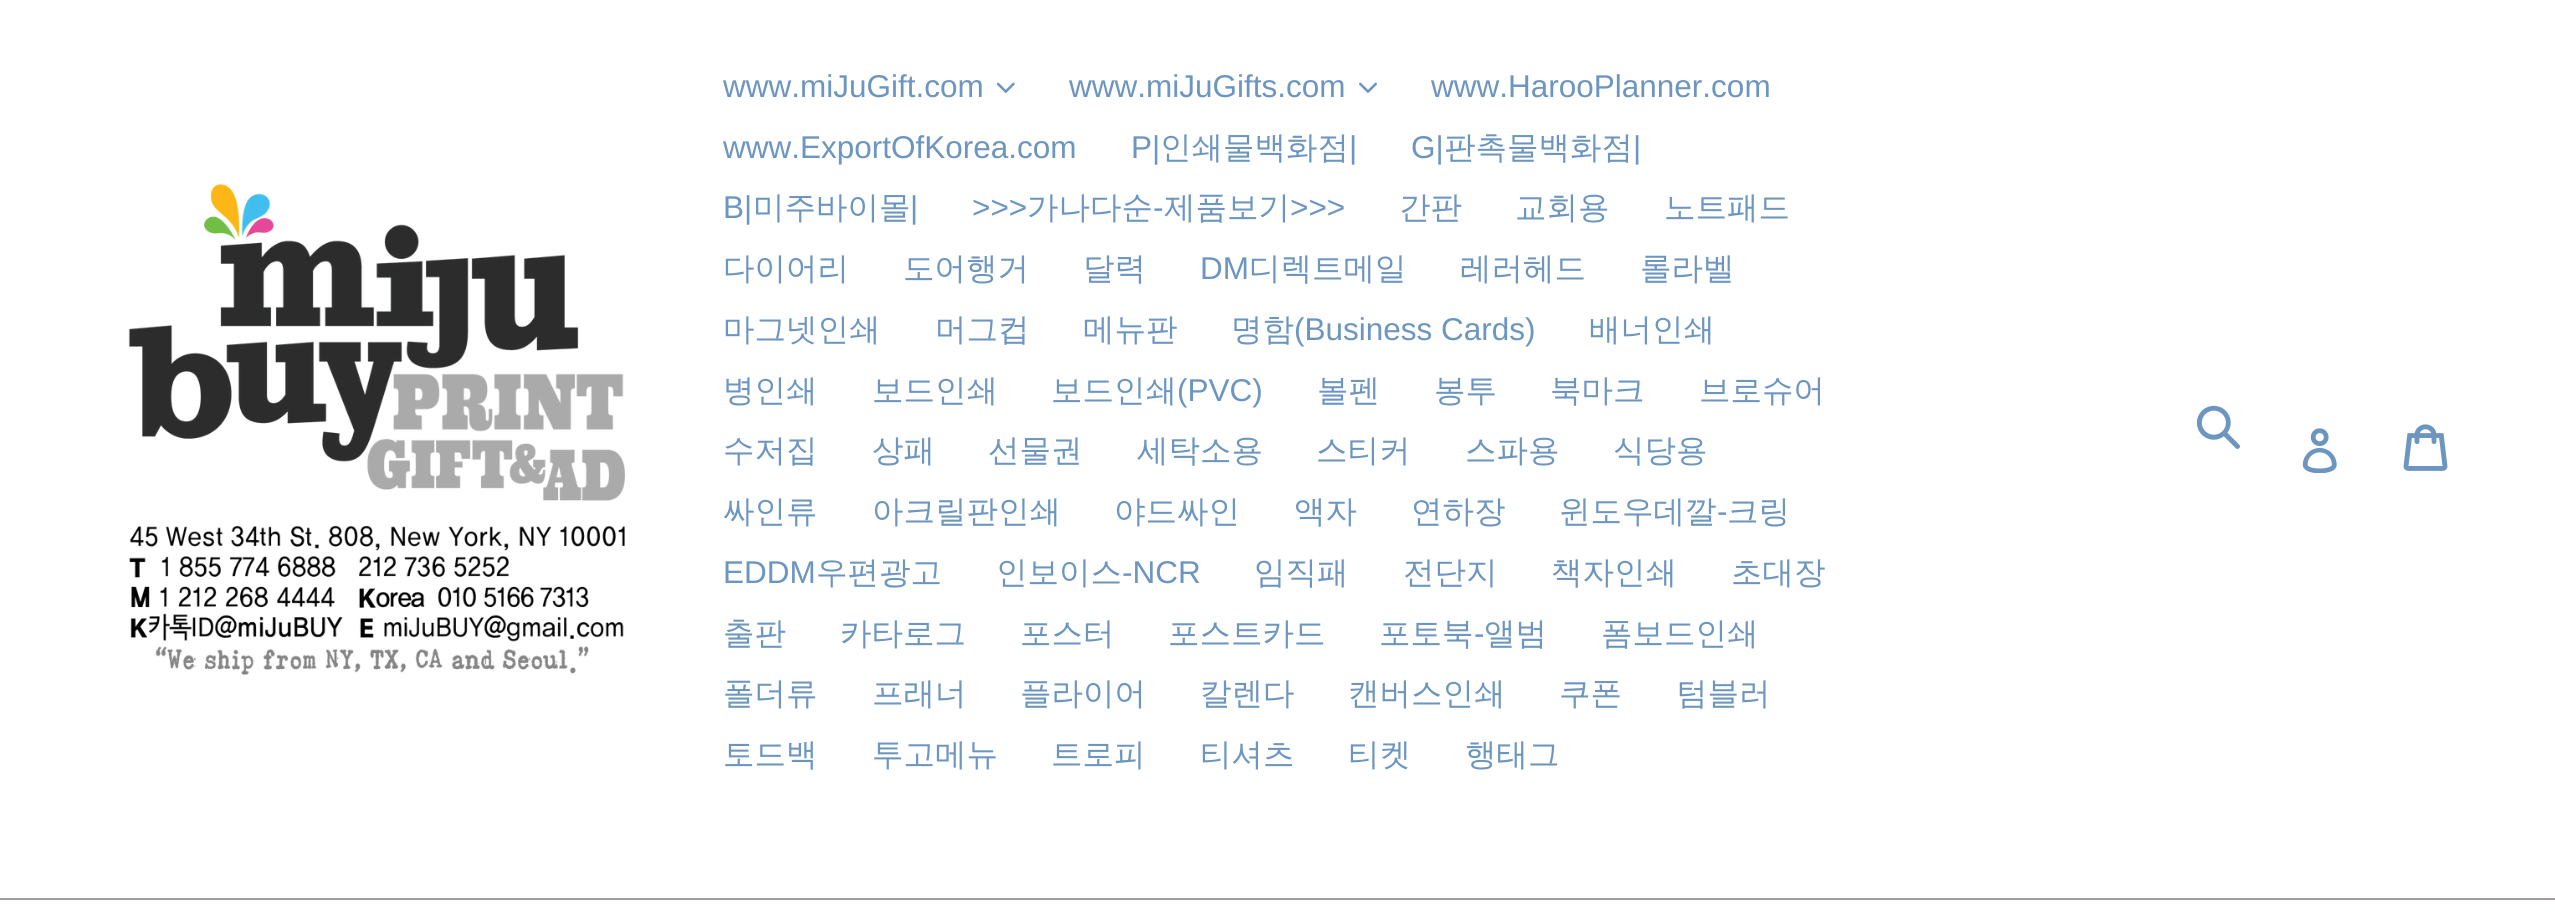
#include <cairo.h>
#include <math.h>
#include <stddef.h>

static cairo_t *c;
static void C(unsigned color){cairo_set_source_rgb(c, (color >> 16) / 255.0, (color >> 8 & 255) / 255.0, (color & 255) / 255.0);}
static void F(const char *family, double size, int italic, int bold){cairo_select_font_face(c, family, italic ? CAIRO_FONT_SLANT_ITALIC : CAIRO_FONT_SLANT_NORMAL,bold ? CAIRO_FONT_WEIGHT_BOLD : CAIRO_FONT_WEIGHT_NORMAL);cairo_set_font_size(c, size);}
static void T(double x, double y, const char *s){cairo_move_to(c, x, y);cairo_show_text(c, s);}
static void R(double x, double y, double w, double h){cairo_rectangle(c, x, y, w, h);cairo_fill(c);}
static void I(const char *path, double x, double y, double w, double h){cairo_surface_t *image = cairo_image_surface_create_from_png(path);cairo_save(c);cairo_set_source_surface(c, image, x, y);cairo_rectangle(c, x, y, w, h);cairo_fill(c);cairo_restore(c);cairo_surface_destroy(image);}
int main(void) {
cairo_surface_t *surface = cairo_image_surface_create(CAIRO_FORMAT_RGB24, 2555, 917);
c = cairo_create(surface);
cairo_font_options_t *options = cairo_font_options_create();
cairo_font_options_set_hint_metrics(options, CAIRO_HINT_METRICS_OFF);
cairo_font_options_set_hint_style(options, CAIRO_HINT_STYLE_NONE);
cairo_set_font_options(c, options);
cairo_set_miter_limit(c, 4);
C(0xffffff);
cairo_paint(c);
C(0xa29d9d);
R(0,898,2555,2);
I("1.png",128,184,497,491);
F("Liberation Sans",31.5,0,0);
C(0x6c95c0);
T(723,97,"www.miJuGift.com");
I("2.png",997,82,18,11);
T(1069,97,"www.miJuGifts.com");
I("3.png",1359,82,18,11);
T(1431,97,"www.HarooPlanner.com");
T(723,158,"www.ExportOfKorea.com");
T(1131,158,"P|");
F("WenQuanYi Zen Hei Medium",31.5,0,0);
T(1160,158,"인쇄물백화점");
F("Liberation Sans",31.5,0,0);
T(1349,158,"|");
T(1411,158,"G|");
F("WenQuanYi Zen Hei Medium",31.5,0,0);
T(1444,158,"판촉물백화점");
F("Liberation Sans",31.5,0,0);
T(1633,158,"|");
T(723,218,"B|");
F("WenQuanYi Zen Hei Medium",31.5,0,0);
T(753,218,"미주바이몰");
F("Liberation Sans",31.5,0,0);
T(910,218,"|");
T(972,218,">>>");
F("WenQuanYi Zen Hei Medium",31.5,0,0);
T(1027,218,"가나다순");
F("Liberation Sans",31.5,0,0);
T(1153,218,"-");
F("WenQuanYi Zen Hei Medium",31.5,0,0);
T(1164,218,"제품보기");
F("Liberation Sans",31.5,0,0);
T(1290,218,">>>");
F("WenQuanYi Zen Hei Medium",31.5,0,0);
T(1399,218,"간판");
T(1515,218,"교회용");
T(1664,218,"노트패드");
T(723,279,"다이어리");
T(903,279,"도어행거");
T(1083,279,"달력");
F("Liberation Sans",31.5,0,0);
T(1200,279,"DM");
F("WenQuanYi Zen Hei Medium",31.5,0,0);
T(1249,279,"디렉트메일");
T(1460,279,"레러헤드");
T(1640,279,"롤라벨");
T(723,340,"마그넷인쇄");
T(935,340,"머그컵");
T(1083,340,"메뉴판");
T(1231,340,"명함");
F("Liberation Sans",31.5,0,0);
T(1294,340,"(Business Cards)");
F("WenQuanYi Zen Hei Medium",31.5,0,0);
T(1589,340,"배너인쇄");
T(723,401,"병인쇄");
T(872,401,"보드인쇄");
T(1051,401,"보드인쇄");
F("Liberation Sans",31.5,0,0);
T(1177,401,"(PVC)");
F("WenQuanYi Zen Hei Medium",31.5,0,0);
T(1317,401,"볼펜");
T(1434,401,"봉투");
T(1550,401,"북마크");
T(1699,401,"브로슈어");
T(723,461,"수저집");
T(872,461,"상패");
T(988,461,"선물권");
T(1137,461,"세탁소용");
T(1316,461,"스티커");
T(1465,461,"스파용");
T(1613,461,"식당용");
T(723,522,"싸인류");
T(872,522,"아크릴판인쇄");
T(1114,522,"야드싸인");
T(1294,522,"액자");
T(1411,522,"연하장");
T(1559,522,"윈도우데깔");
F("Liberation Sans",31.5,0,0);
T(1717,522,"-");
F("WenQuanYi Zen Hei Medium",31.5,0,0);
T(1727,522,"크링");
F("Liberation Sans",31.5,0,0);
T(723,583,"EDDM");
F("WenQuanYi Zen Hei Medium",31.5,0,0);
T(816,583,"우편광고");
T(996,583,"인보이스");
F("Liberation Sans",31.5,0,0);
T(1122,583,"-NCR");
F("WenQuanYi Zen Hei Medium",31.5,0,0);
T(1254,583,"임직패");
T(1403,583,"전단지");
T(1551,583,"책자인쇄");
T(1731,583,"초대장");
T(723,644,"출판");
T(840,644,"카타로그");
T(1020,644,"포스터");
T(1168,644,"포스트카드");
T(1379,644,"포토북");
F("Liberation Sans",31.5,0,0);
T(1474,644,"-");
F("WenQuanYi Zen Hei Medium",31.5,0,0);
T(1484,644,"앨범");
T(1601,644,"폼보드인쇄");
T(723,704,"폴더류");
T(872,704,"프래너");
T(1020,704,"플라이어");
T(1200,704,"칼렌다");
T(1348,704,"캔버스인쇄");
T(1559,704,"쿠폰");
T(1676,704,"텀블러");
T(723,765,"토드백");
T(872,765,"투고메뉴");
T(1051,765,"트로피");
T(1200,765,"티셔츠");
T(1348,765,"티켓");
T(1465,765,"행태그");
I("4.png",2196,405,44,44);
I("5.png",2302,428,35,45);
I("6.png",2403,424,45,47);
cairo_surface_write_to_png(surface, "o.png");
cairo_font_options_destroy(options);
cairo_destroy(c);
cairo_surface_destroy(surface);
return 0;
}
